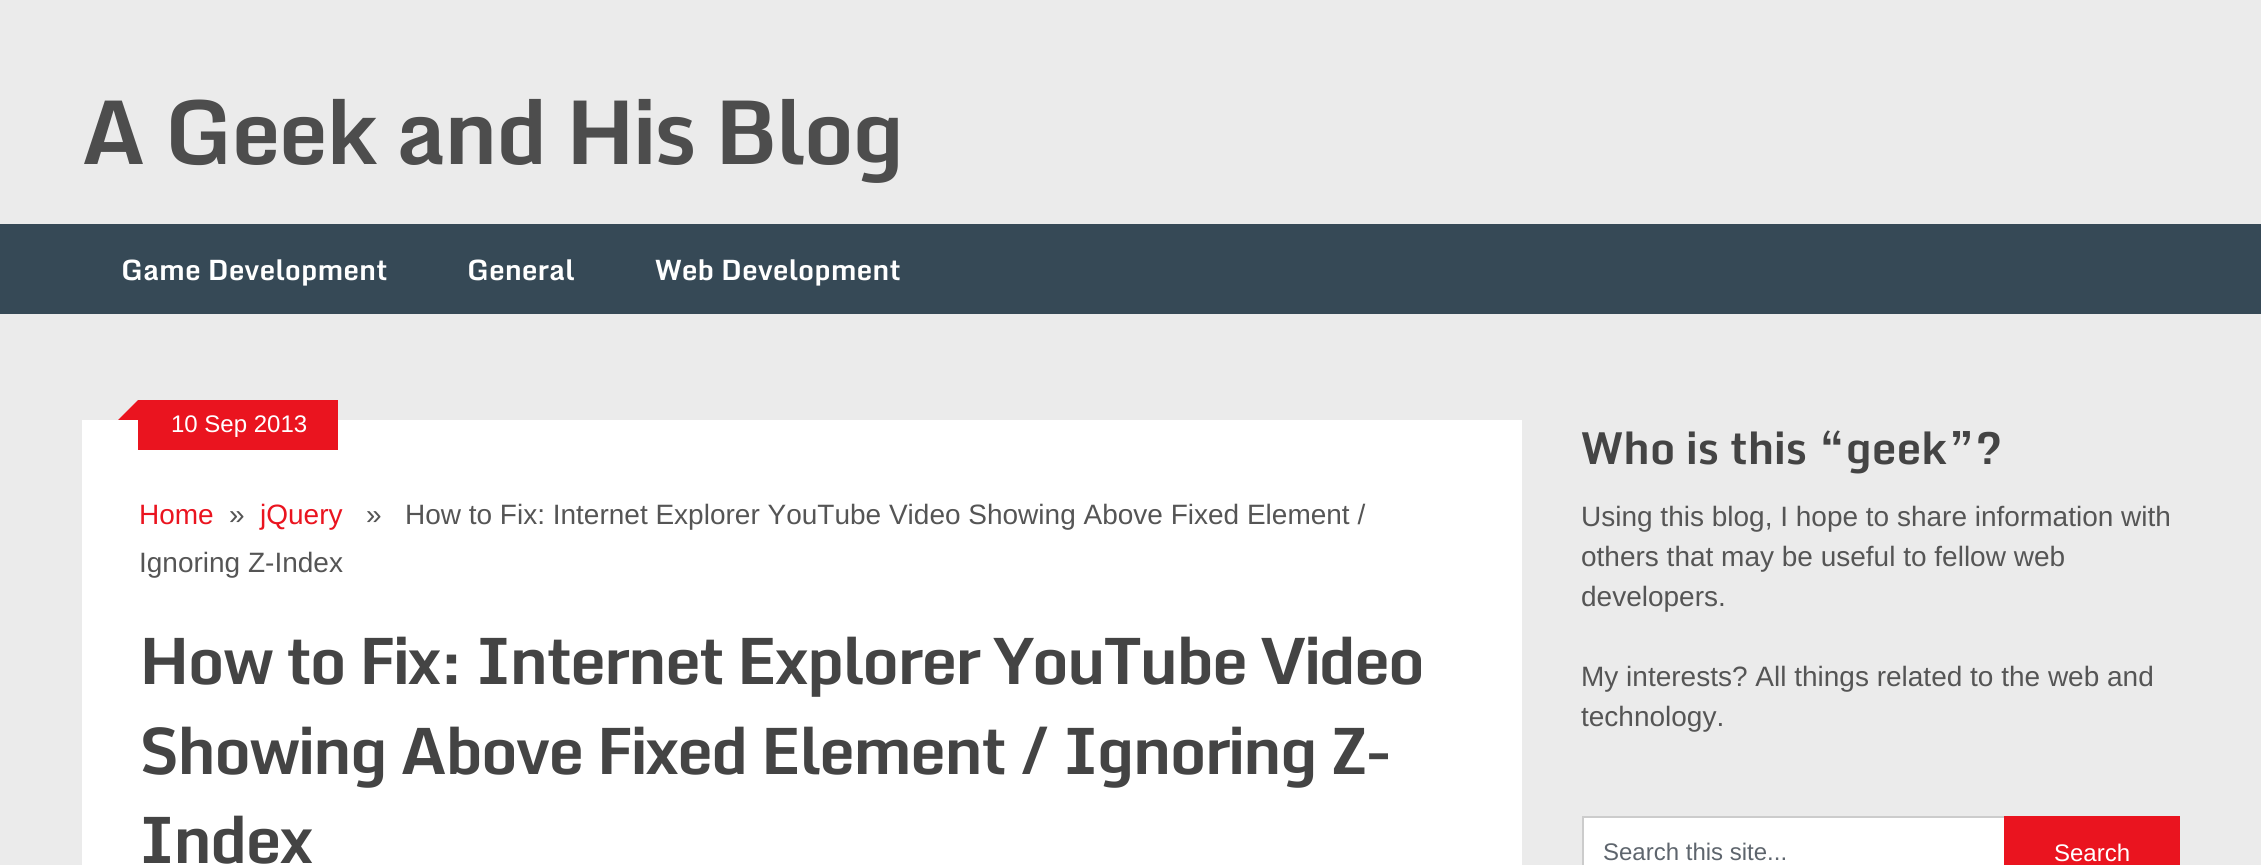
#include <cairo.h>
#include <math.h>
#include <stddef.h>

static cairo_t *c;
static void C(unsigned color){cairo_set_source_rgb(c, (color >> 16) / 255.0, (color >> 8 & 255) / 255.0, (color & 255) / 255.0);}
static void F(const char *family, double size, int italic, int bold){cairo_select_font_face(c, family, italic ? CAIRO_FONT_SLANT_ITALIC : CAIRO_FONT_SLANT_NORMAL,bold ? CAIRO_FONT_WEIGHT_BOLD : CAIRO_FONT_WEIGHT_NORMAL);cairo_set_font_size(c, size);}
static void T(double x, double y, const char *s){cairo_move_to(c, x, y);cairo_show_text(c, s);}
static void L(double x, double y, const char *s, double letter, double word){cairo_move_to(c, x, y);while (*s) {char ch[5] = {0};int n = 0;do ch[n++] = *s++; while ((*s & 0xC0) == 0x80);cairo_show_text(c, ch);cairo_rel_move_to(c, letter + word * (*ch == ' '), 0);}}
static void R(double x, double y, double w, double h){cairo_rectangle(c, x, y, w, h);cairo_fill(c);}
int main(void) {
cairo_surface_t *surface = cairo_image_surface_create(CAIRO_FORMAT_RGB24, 2261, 865);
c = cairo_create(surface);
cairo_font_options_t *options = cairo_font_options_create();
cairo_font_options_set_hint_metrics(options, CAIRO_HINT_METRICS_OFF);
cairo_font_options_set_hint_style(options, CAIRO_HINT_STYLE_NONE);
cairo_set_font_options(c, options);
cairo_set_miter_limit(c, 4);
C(0xebebeb);
cairo_paint(c);
F("Monda",88,0,1);
C(0x4d4d4d);
L(81,164,"A Geek and His Blog",-2,0);
C(0x364956);
R(0,224,2261,90);
F("Monda",28,0,1);
C(0xffffff);
T(121,280,"Game Development");
T(467,280,"General");
T(655,280,"Web Development");
R(82,420,1440,445);
C(0xea141f);
R(138,400,200,50);
cairo_new_path(c);
cairo_move_to(c,138,420);
cairo_line_to(c,118,420);
cairo_line_to(c,138,400);
cairo_close_path(c);
cairo_fill(c);
F("Liberation Sans",24,0,0);
C(0xffffff);
T(171,432,"10 Sep 2013");
F("Liberation Sans",28,0,0);
C(0xea141f);
T(139,524,"Home");
C(0x555555);
T(229,524,"»");
C(0xea141f);
T(260,524,"jQuery");
C(0x555555);
T(366,524,"»   How to Fix: Internet Explorer YouTube Video Showing Above Fixed Element /");
T(139,572,"Ignoring Z-Index");
F("Monda",64,0,1);
C(0x444444);
L(139,684,"How to Fix: Internet Explorer YouTube Video",-2,0);
L(139,774,"Showing Above Fixed Element / Ignoring Z-",-2,0);
L(139,863,"Index",-2,0);
F("Monda",44,0,1);
T(1581,464,"Who is this “geek”?");
F("Liberation Sans",28,0,0);
C(0x555555);
T(1581,526,"Using this blog, I hope to share information with");
T(1581,566,"others that may be useful to fellow web");
T(1581,606,"developers.");
T(1581,686,"My interests? All things related to the web and");
T(1581,726,"technology.");
C(0xffffff);
R(1584,818,420,47);
C(0xcccccc);
R(1582,816,422,2);
R(1582,816,2,49);
F("Liberation Sans",24,0,0);
C(0x5e656d);
T(1603,860,"Search this site...");
C(0xea141f);
R(2004,816,176,49);
C(0xffffff);
T(2054,861,"Search");
cairo_surface_write_to_png(surface, "o.png");
cairo_font_options_destroy(options);
cairo_destroy(c);
cairo_surface_destroy(surface);
return 0;
}
